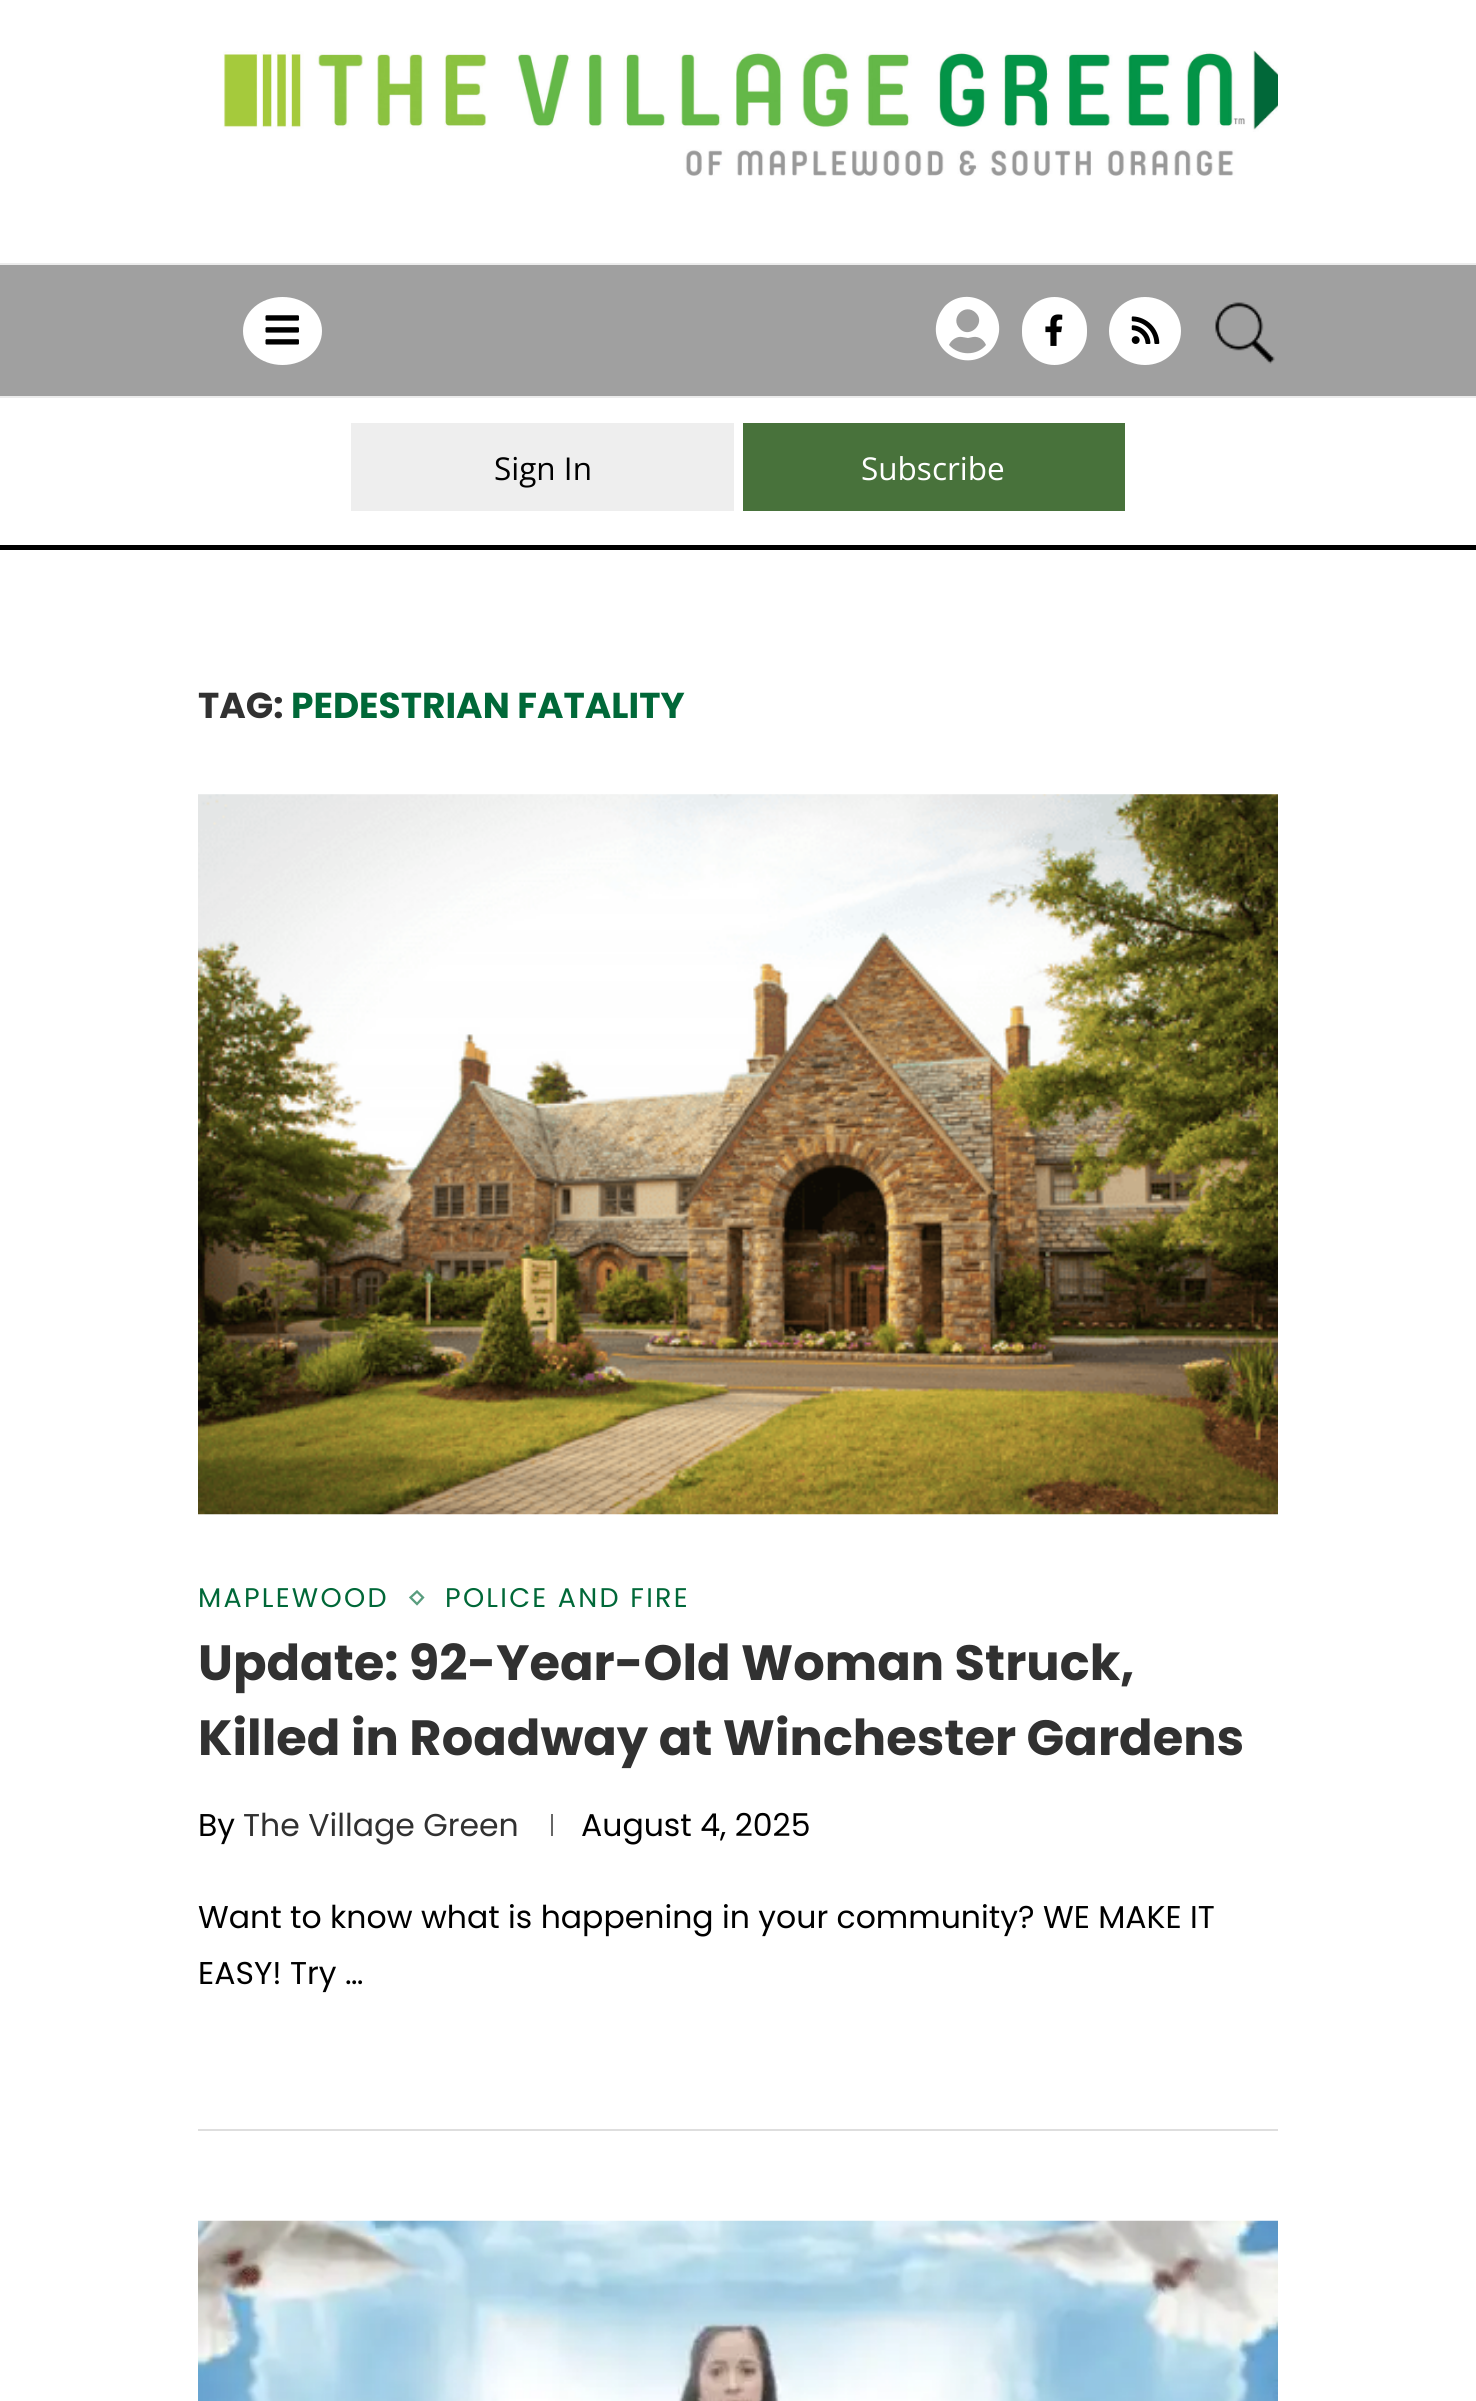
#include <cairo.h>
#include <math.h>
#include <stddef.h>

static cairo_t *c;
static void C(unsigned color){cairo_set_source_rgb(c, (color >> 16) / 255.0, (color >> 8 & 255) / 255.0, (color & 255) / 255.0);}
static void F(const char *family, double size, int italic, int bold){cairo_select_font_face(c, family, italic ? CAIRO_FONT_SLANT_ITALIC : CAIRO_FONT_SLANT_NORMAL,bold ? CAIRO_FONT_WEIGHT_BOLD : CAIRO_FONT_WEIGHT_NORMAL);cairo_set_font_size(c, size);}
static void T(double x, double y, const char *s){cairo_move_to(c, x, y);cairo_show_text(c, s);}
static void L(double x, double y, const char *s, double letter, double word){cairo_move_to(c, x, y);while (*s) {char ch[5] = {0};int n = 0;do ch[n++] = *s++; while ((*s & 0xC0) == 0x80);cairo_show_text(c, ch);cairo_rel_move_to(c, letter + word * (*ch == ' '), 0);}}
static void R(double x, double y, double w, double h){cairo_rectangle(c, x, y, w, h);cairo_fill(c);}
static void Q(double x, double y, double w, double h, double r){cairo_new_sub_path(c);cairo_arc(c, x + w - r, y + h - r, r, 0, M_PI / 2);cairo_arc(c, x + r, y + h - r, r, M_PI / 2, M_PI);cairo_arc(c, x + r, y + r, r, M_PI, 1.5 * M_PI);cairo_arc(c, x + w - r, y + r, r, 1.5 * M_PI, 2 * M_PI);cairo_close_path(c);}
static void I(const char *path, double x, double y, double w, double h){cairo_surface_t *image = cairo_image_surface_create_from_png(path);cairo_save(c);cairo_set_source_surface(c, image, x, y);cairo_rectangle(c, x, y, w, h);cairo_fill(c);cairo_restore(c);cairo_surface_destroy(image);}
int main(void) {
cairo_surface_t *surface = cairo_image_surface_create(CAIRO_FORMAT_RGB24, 1476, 2401);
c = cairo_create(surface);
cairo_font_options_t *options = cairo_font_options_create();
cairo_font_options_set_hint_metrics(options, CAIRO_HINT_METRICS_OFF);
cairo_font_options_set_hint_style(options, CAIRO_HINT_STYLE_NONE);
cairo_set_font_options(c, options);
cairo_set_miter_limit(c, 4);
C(0xffffff);
cairo_paint(c);
I("1.png",223,50,1055,126);
C(0xa0a0a0);
R(0,265,1476,131);
C(0xececec);
R(0,263,1476,2);
R(0,396,1476,2);
C(0xffffff);
cairo_new_path(c);
cairo_move_to(c,282.5,297);
cairo_curve_to(c,304.5,297,322,312,322,331);
cairo_curve_to(c,322,350,304.5,365,282.5,365);
cairo_curve_to(c,260.5,365,243,350,243,331);
cairo_curve_to(c,243,312,260.5,297,282.5,297);
cairo_close_path(c);
cairo_fill(c);
I("2.png",265,315,34,30);
cairo_new_path(c);
cairo_move_to(c,945,306);
cairo_curve_to(c,966,285,1002,303,999,332);
cairo_curve_to(c,998,339,995,346,990,351);
cairo_curve_to(c,969,372,933,355,936,326);
cairo_curve_to(c,937,318,940,312,945,306);
cairo_close_path(c);
cairo_move_to(c,976,313);
cairo_curve_to(c,965,302,949,318,960,329);
cairo_curve_to(c,970,339,986,323,976,313);
cairo_close_path(c);
cairo_move_to(c,949,345);
cairo_curve_to(c,959,356,977,356,986,345);
cairo_curve_to(c,984,340,979,336,973,337);
cairo_line_to(c,968,338);
cairo_line_to(c,962,337);
cairo_curve_to(c,957,336,951,340,949,345);
cairo_close_path(c);
cairo_fill(c);
Q(1022,297,65,68,32.5);
cairo_fill(c);
I("3.png",1045,314,18,32);
cairo_new_path(c);
cairo_move_to(c,1145,297);
cairo_curve_to(c,1165,297,1181,312,1181,331);
cairo_curve_to(c,1181,350,1165,365,1145,365);
cairo_curve_to(c,1125,365,1109,350,1109,331);
cairo_curve_to(c,1109,312,1125,297,1145,297);
cairo_close_path(c);
cairo_fill(c);
I("4.png",1131,316,29,28);
I("5.png",1215,302,60,62);
C(0x000000);
R(0,545,1476,5);
C(0xeeeeee);
R(351,423,383,88);
F("Open Sans",31.5,0,0);
C(0x000000);
T(494,480,"Sign In");
C(0x48723b);
R(743,423,382,88);
C(0xffffff);
T(861,480,"Subscribe");
F("Poppins",36,0,1);
C(0x313131);
T(198,718,"TAG:");
C(0x006838);
T(291,718,"PEDESTRIAN FATALITY");
C(0xdedede);
R(198,2129,1080,2);
I("6.png",198,794,1080,721);
F("Poppins",27,0,0);
C(0x006838);
L(198,1607,"MAPLEWOOD",2.25,0);
cairo_new_path(c);
cairo_move_to(c,417,1591.5);
cairo_line_to(c,423,1597.5);
cairo_line_to(c,417,1604);
cairo_line_to(c,410.5,1597.5);
cairo_close_path(c);
C(0x599d7e);
cairo_set_line_width(c,2.3);
cairo_stroke(c);
C(0x006838);
L(445,1607,"POLICE AND FIRE",2.25,0);
F("Poppins",49.5,0,1);
C(0x313131);
T(198,1680,"Update: 92-Year-Old Woman Struck,");
T(198,1755,"Killed in Roadway at Winchester Gardens");
F("Poppins",31.5,0,0);
C(0x000000);
T(198,1836,"By");
C(0x313131);
T(243,1836,"The Village Green");
C(0x666666);
R(551,1814,2,22);
C(0x000000);
T(581,1836,"August 4, 2025");
T(198,1928,"Want to know what is happening in your community? WE MAKE IT");
T(198,1984,"EASY! Try …");
I("7.png",198,2220,1080,181);
cairo_surface_write_to_png(surface, "o.png");
cairo_font_options_destroy(options);
cairo_destroy(c);
cairo_surface_destroy(surface);
return 0;
}
